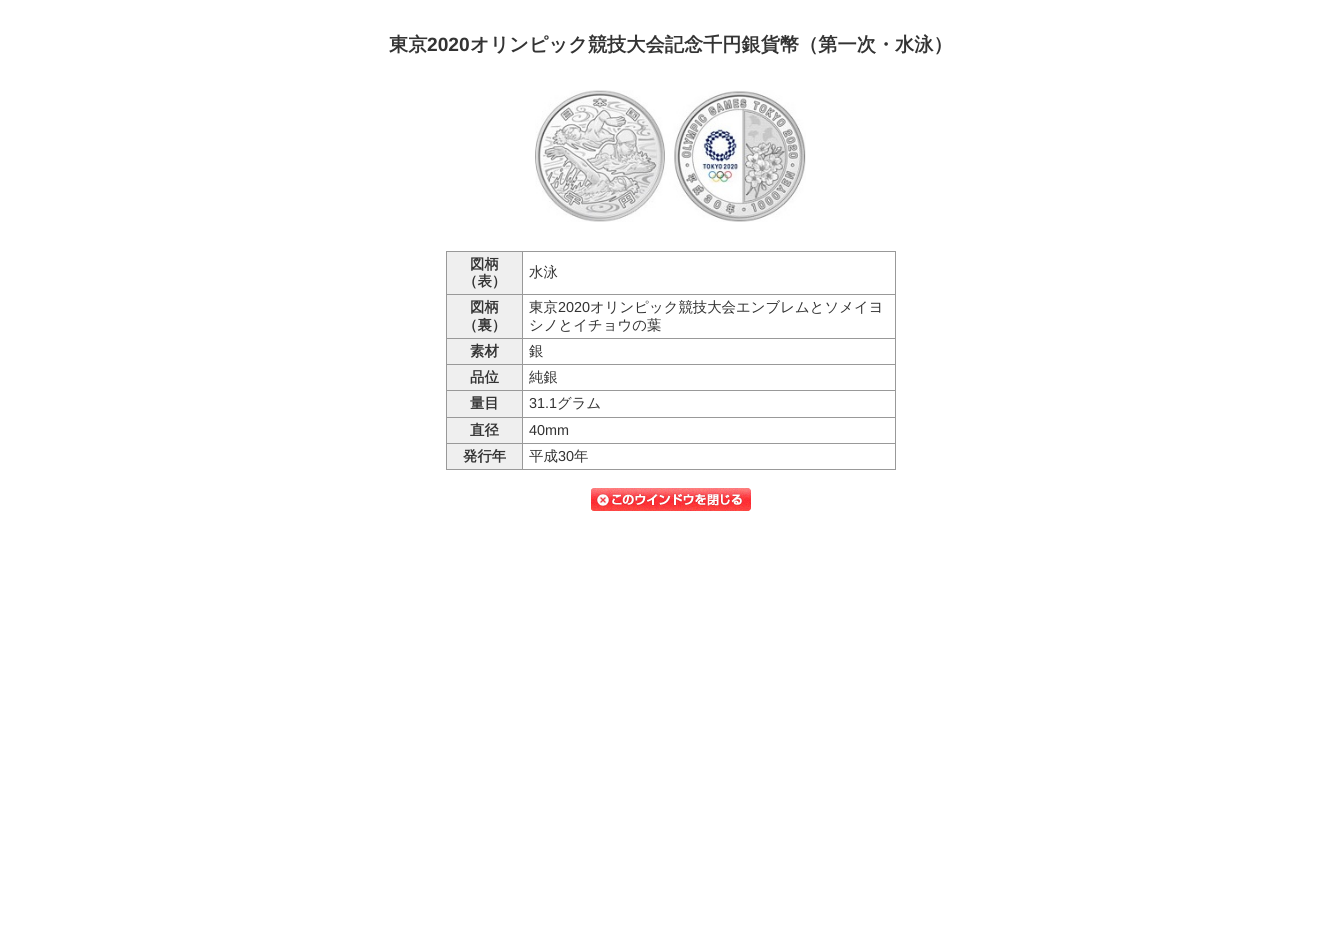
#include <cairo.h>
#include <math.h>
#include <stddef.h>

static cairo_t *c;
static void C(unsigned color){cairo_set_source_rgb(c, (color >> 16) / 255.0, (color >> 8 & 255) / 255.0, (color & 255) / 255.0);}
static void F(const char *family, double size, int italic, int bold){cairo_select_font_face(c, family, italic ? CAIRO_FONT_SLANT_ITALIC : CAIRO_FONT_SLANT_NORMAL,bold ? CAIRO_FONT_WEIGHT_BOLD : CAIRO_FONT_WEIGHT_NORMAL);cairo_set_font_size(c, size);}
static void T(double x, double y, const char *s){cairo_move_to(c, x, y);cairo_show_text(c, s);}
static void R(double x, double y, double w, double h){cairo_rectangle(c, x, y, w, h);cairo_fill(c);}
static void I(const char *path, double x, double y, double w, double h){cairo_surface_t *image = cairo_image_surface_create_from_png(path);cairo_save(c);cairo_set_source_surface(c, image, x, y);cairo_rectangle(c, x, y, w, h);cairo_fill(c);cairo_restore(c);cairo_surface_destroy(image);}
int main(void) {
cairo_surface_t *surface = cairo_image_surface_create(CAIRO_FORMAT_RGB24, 1341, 941);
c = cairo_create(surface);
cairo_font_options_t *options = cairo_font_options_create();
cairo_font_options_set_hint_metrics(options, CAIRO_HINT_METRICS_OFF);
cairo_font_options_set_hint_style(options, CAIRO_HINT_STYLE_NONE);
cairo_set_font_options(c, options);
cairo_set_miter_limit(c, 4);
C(0xffffff);
cairo_paint(c);
F("WenQuanYi Zen Hei",19.2,0,1);
C(0x333333);
T(389,51,"東京");
F("Liberation Sans",19.2,0,1);
T(427,51,"2020");
F("WenQuanYi Zen Hei",19.2,0,1);
T(470,51,"オリンピック競技大会記念千円銀貨幣（第一次・水泳）");
I("1.png",535,90,271,132);
C(0x999999);
R(446,251,450,1);
R(446,251,1,219);
C(0xefefef);
R(447,252,75,42);
C(0x999999);
R(895,251,1,219);
R(522,469,374,1);
R(522,443,1,27);
R(522,443,374,1);
R(522,417,1,27);
R(522,417,374,1);
R(522,390,1,28);
R(522,390,374,1);
R(522,364,1,27);
R(522,364,374,1);
R(522,338,1,27);
R(522,338,374,1);
R(522,294,1,45);
R(522,294,374,1);
R(522,251,1,44);
R(446,294,77,1);
F("WenQuanYi Zen Hei",14.4,0,1);
C(0x333333);
T(470,269,"図柄");
T(463,286,"（表）");
F("WenQuanYi Zen Hei Medium",14.4,0,0);
T(529,277,"水泳");
C(0xefefef);
R(447,295,75,43);
C(0x999999);
R(446,338,77,1);
F("WenQuanYi Zen Hei",14.4,0,1);
C(0x333333);
T(470,312,"図柄");
T(463,330,"（裏）");
F("WenQuanYi Zen Hei Medium",14.4,0,0);
T(529,312,"東京");
F("Liberation Sans",14.4,0,0);
T(558,312,"2020");
F("WenQuanYi Zen Hei Medium",14.4,0,0);
T(590,312,"オリンピック競技大会エンブレムとソメイヨ");
T(529,330,"シノとイチョウの葉");
C(0xefefef);
R(447,339,75,25);
C(0x999999);
R(446,364,77,1);
F("WenQuanYi Zen Hei",14.4,0,1);
C(0x333333);
T(470,356,"素材");
F("WenQuanYi Zen Hei Medium",14.4,0,0);
T(529,356,"銀");
C(0xefefef);
R(447,365,75,25);
C(0x999999);
R(446,390,77,1);
F("WenQuanYi Zen Hei",14.4,0,1);
C(0x333333);
T(470,382,"品位");
F("WenQuanYi Zen Hei Medium",14.4,0,0);
T(529,382,"純銀");
C(0xefefef);
R(447,391,75,26);
C(0x999999);
R(446,417,77,1);
F("WenQuanYi Zen Hei",14.4,0,1);
C(0x333333);
T(470,408,"量目");
F("Liberation Sans",14.4,0,0);
T(529,408,"31.1");
F("WenQuanYi Zen Hei Medium",14.4,0,0);
T(557,408,"グラム");
C(0xefefef);
R(447,418,75,25);
C(0x999999);
R(446,443,77,1);
F("WenQuanYi Zen Hei",14.4,0,1);
C(0x333333);
T(470,435,"直径");
F("Liberation Sans",14.4,0,0);
T(529,435,"40mm");
C(0xefefef);
R(447,444,75,25);
C(0x999999);
R(446,469,77,1);
F("WenQuanYi Zen Hei",14.4,0,1);
C(0x333333);
T(463,461,"発行年");
F("WenQuanYi Zen Hei Medium",14.4,0,0);
T(529,461,"平成");
F("Liberation Sans",14.4,0,0);
T(558,461,"30");
F("WenQuanYi Zen Hei Medium",14.4,0,0);
T(574,461,"年");
I("2.png",591,488,160,23);
cairo_surface_write_to_png(surface, "o.png");
cairo_font_options_destroy(options);
cairo_destroy(c);
cairo_surface_destroy(surface);
return 0;
}
